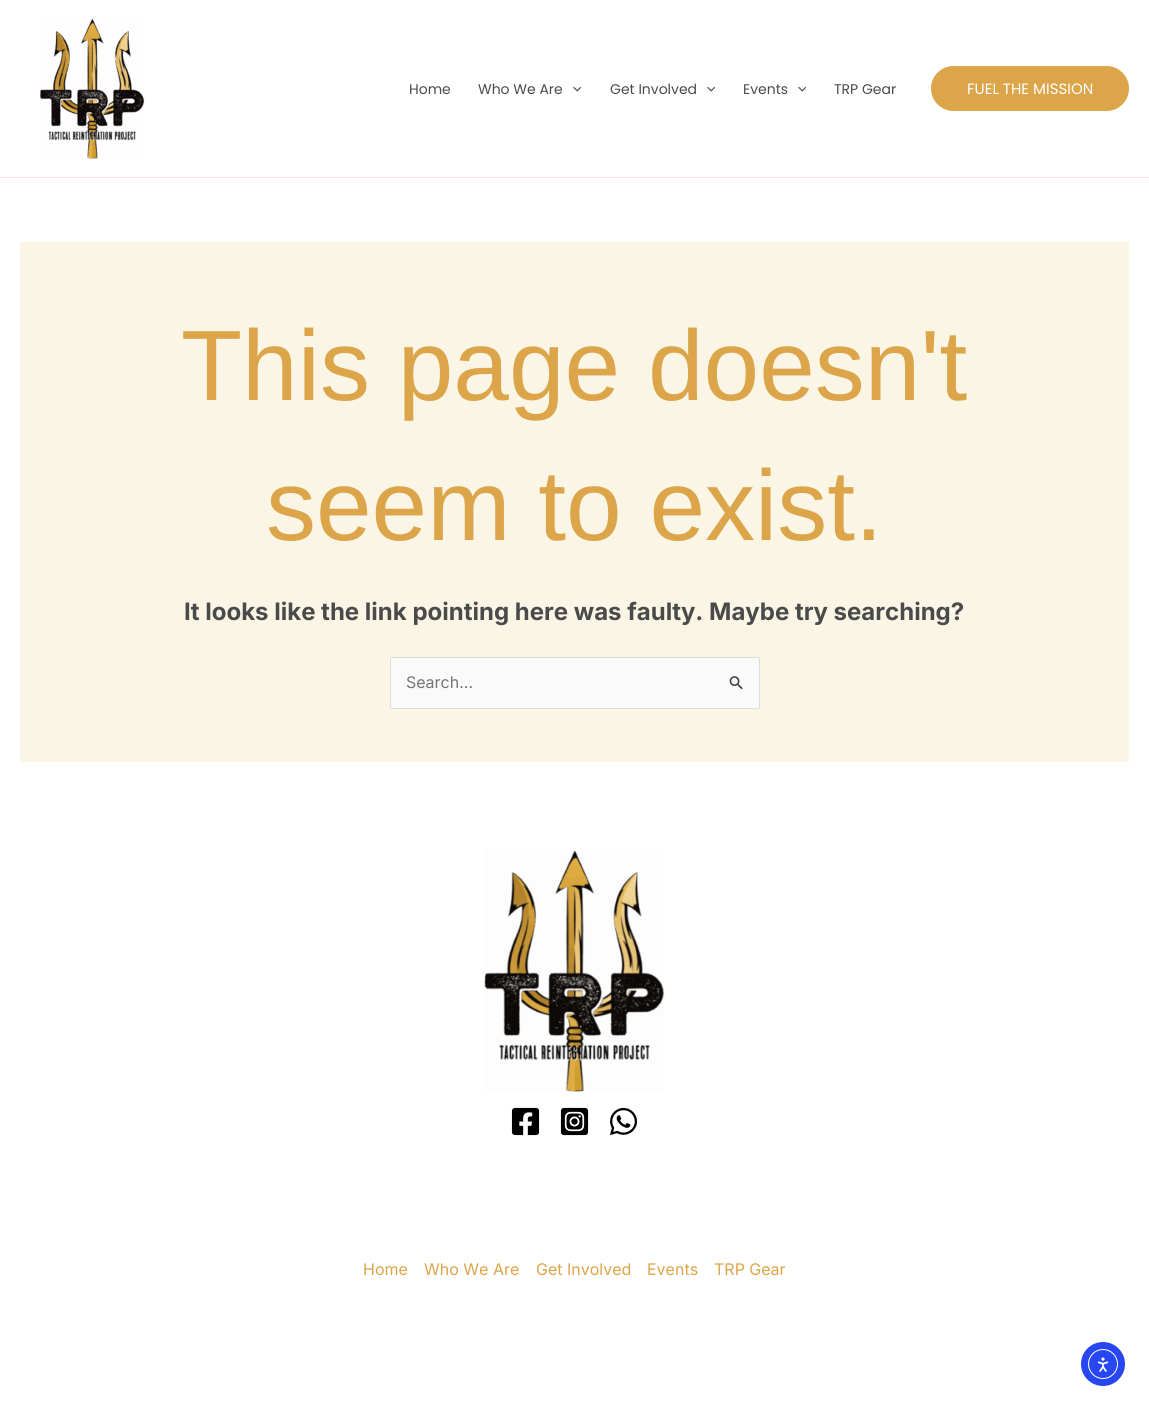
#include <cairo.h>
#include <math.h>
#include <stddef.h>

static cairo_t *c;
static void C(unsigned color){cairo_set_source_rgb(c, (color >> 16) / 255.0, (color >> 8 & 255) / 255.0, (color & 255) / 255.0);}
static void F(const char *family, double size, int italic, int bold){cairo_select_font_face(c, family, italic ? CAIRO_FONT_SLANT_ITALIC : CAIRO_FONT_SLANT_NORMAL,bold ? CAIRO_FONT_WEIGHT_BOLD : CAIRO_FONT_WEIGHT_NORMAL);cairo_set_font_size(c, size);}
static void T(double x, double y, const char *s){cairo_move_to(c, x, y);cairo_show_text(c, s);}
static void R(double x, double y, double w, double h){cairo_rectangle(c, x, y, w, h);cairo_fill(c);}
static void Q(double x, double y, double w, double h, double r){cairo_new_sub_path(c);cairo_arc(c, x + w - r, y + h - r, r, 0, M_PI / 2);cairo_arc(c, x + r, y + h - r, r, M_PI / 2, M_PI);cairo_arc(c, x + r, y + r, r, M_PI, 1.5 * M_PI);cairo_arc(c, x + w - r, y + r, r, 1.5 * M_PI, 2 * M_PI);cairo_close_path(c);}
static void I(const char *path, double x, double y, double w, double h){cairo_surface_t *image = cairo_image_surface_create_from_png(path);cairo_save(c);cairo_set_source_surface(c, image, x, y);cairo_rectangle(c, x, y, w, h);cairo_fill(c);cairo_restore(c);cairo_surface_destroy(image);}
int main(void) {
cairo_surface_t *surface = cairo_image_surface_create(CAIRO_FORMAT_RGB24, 1149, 1410);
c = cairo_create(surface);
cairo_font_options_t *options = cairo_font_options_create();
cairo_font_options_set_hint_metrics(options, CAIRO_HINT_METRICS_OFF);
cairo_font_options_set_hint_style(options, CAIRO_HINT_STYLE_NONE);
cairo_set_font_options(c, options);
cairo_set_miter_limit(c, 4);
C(0xffffff);
cairo_paint(c);
C(0xfde6f1);
R(0,177,1149,1);
I("1.png",40,18,105,141);
F("Poppins",14,0,0);
C(0x4a4a4a);
T(409,94,"Home");
T(478,94,"Who We Are");
I("2.png",573,86,9,6);
T(610,94,"Get Involved");
I("3.png",707,86,8,6);
T(743,94,"Events");
I("3.png",798,86,8,6);
T(834,94,"TRP Gear");
C(0xdca54a);
Q(931.5,66.5,197,44,22);
cairo_fill_preserve(c);
cairo_set_line_width(c,1);
cairo_stroke(c);
F("Poppins",15,0,0);
C(0xffffff);
T(967,94,"FUEL THE MISSION");
C(0xfaf5e5);
R(20,242,1109,520);
F("Liberation Sans",100,0,0);
C(0xdca54a);
T(181,400,"This page doesn't");
T(266,540,"seem to exist.");
F("Inter",24,0,1);
C(0x4a4a4a);
T(184,620,"It looks like the link pointing here was faulty. Maybe try searching?");
C(0xfafafa);
Q(390.5,657.5,369,51,1.5);
cairo_fill_preserve(c);
C(0xdddddd);
cairo_stroke(c);
F("Inter",16,0,0);
C(0x757575);
T(406,688,"Search...");
I("4.png",729,676,14,14);
I("5.png",484,850,181,242);
I("6.png",511,1107,29,29);
I("7.png",560,1107,29,29);
I("8.png",610,1107,28,28);
C(0xdca54a);
T(363,1275,"Home");
T(424,1275,"Who We Are");
T(536,1275,"Get Involved");
T(647,1275,"Events");
T(714,1275,"TRP Gear");
C(0x2847f3);
cairo_new_path(c);
cairo_arc(c,1103,1364,22,0,2 * M_PI);
cairo_fill(c);
cairo_arc(c,1103,1364,14.5,0,2 * M_PI);
C(0xffffff);
cairo_stroke(c);
I("9.png",1097,1357,12,15);
cairo_surface_write_to_png(surface, "o.png");
cairo_font_options_destroy(options);
cairo_destroy(c);
cairo_surface_destroy(surface);
return 0;
}
